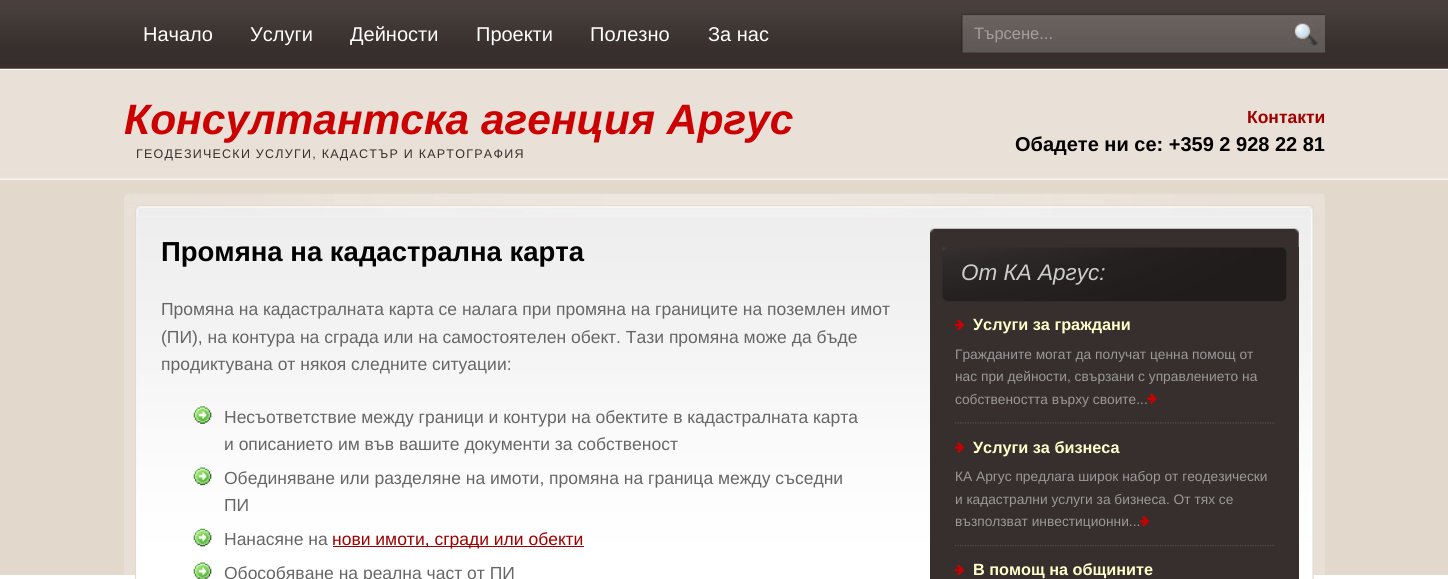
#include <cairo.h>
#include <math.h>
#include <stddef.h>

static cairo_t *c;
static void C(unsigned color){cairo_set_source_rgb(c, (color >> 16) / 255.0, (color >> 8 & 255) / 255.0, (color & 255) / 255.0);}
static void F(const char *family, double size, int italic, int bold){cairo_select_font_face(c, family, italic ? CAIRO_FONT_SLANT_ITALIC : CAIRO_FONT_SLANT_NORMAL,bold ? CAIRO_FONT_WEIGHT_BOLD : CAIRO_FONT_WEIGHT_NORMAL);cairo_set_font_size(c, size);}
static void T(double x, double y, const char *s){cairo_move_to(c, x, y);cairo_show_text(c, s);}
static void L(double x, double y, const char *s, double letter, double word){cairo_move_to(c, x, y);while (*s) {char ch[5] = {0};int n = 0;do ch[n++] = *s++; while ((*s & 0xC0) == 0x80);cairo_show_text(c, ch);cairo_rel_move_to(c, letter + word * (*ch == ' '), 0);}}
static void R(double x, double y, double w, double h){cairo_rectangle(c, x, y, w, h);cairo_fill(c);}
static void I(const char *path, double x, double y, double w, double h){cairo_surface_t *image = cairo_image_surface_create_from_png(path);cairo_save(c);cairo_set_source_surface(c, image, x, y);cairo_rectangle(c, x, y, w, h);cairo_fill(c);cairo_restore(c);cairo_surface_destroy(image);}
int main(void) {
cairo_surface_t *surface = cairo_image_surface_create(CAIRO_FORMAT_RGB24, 1448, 579);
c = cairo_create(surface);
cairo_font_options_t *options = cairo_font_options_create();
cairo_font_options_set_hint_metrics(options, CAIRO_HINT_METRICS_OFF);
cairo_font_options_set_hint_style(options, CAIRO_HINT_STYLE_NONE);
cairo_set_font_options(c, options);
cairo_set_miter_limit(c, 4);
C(0xffffff);
cairo_paint(c);
I("1.png",0,0,1448,69);
F("Liberation Sans",20,0,0);
C(0xffffff);
T(143,41,"Начало");
T(250,41,"Услуги");
T(350,41,"Дейности");
T(476,41,"Проекти");
T(590,41,"Полезно");
T(708,41,"За нас");
I("2.png",961,13,364,40);
F("Liberation Sans",16.5,0,0);
C(0xa29e9d);
T(974,39,"Търсене...");
I("3.png",1293,17,25,29);
I("4.png",0,70,1448,110);
F("Liberation Sans",42.5,1,1);
C(0xcc0000);
T(124,134,"Консултантска агенция Аргус");
F("Liberation Sans",12.5,0,0);
C(0x362f2d);
L(136,158,"ГЕОДЕЗИЧЕСКИ УСЛУГИ, КАДАСТЪР И КАРТОГРАФИЯ",1.25,0);
F("Liberation Sans",17.5,0,1);
C(0xa00000);
T(1247,123,"Контакти");
F("Liberation Sans",20,0,1);
C(0x000000);
T(1015,151,"Обадете ни се: +359 2 928 22 81");
C(0xe2d8cc);
R(0,180,1448,395);
I("5.png",124,193,1201,24);
I("6.png",124,216,1201,363);
I("7.png",136,216,1176,363);
F("Liberation Sans",27.5,0,1);
C(0x000000);
T(161,261,"Промяна на кадастрална карта");
F("Liberation Sans",17.5,0,0);
C(0x666666);
T(161,315,"Промяна на кадастралната карта се налага при промяна на границите на поземлен имот");
T(161,343,"(ПИ), на контура на сграда или на самостоятелен обект. Тази промяна може да бъде");
T(161,370,"продиктувана от някоя следните ситуации:");
I("8.png",193,405,19,20);
T(224,423,"Несъответствие между граници и контури на обектите в кадастралната карта");
T(224,450,"и описанието им във вашите документи за собственост");
I("9.png",193,467,19,19);
T(224,484,"Обединяване или разделяне на имоти, промяна на граница между съседни");
T(224,511,"ПИ");
I("10.png",193,528,19,19);
T(224,545,"Нанасяне на");
C(0x9d0000);
R(333,546,251,1);
C(0xa00000);
T(332,545,"нови имоти, сгради или обекти");
I("11.png",193,562,19,17);
C(0x666666);
T(224,579,"Обособяване на реална част от ПИ");
I("12.png",930,228,369,19);
C(0x362f2d);
R(930,247,369,332);
I("13.png",942,247,345,55);
F("Liberation Sans",22.5,1,0);
C(0xcccccc);
T(961,280,"От КА Аргус:");
I("14.png",955,320,9,10);
F("Liberation Sans",16.25,0,1);
C(0xffffcc);
T(973,330,"Услуги за граждани");
cairo_new_path(c);
cairo_move_to(c,955,423);
cairo_line_to(c,1274,423);
C(0x4f4f4f);
cairo_set_line_width(c,1.2);
cairo_set_dash(c,(double[]){1.25,1.25},2,0);
cairo_stroke(c);
F("Liberation Sans",13.75,0,0);
C(0x999999);
T(955,359,"Гражданите могат да получат ценна помощ от");
T(955,381,"нас при дейности, свързани с управлението на");
T(955,404,"собствеността върху своите...");
I("15.png",1147,393,10,11);
I("16.png",955,442,9,11);
F("Liberation Sans",16.25,0,1);
C(0xffffcc);
T(973,453,"Услуги за бизнеса");
cairo_new_path(c);
cairo_move_to(c,955,545.5);
cairo_line_to(c,1274,545.5);
C(0x4f4f4f);
cairo_stroke(c);
F("Liberation Sans",13.75,0,0);
C(0x999999);
T(955,481,"КА Аргус предлага широк набор от геодезически");
T(955,504,"и кадастрални услуги за бизнеса. От тях се");
T(955,526,"възползват инвестиционни...");
I("17.png",1140,516,9,11);
I("14.png",955,565,9,10);
F("Liberation Sans",16.25,0,1);
C(0xffffcc);
T(973,575,"В помощ на общините");
cairo_surface_write_to_png(surface, "o.png");
cairo_font_options_destroy(options);
cairo_destroy(c);
cairo_surface_destroy(surface);
return 0;
}
